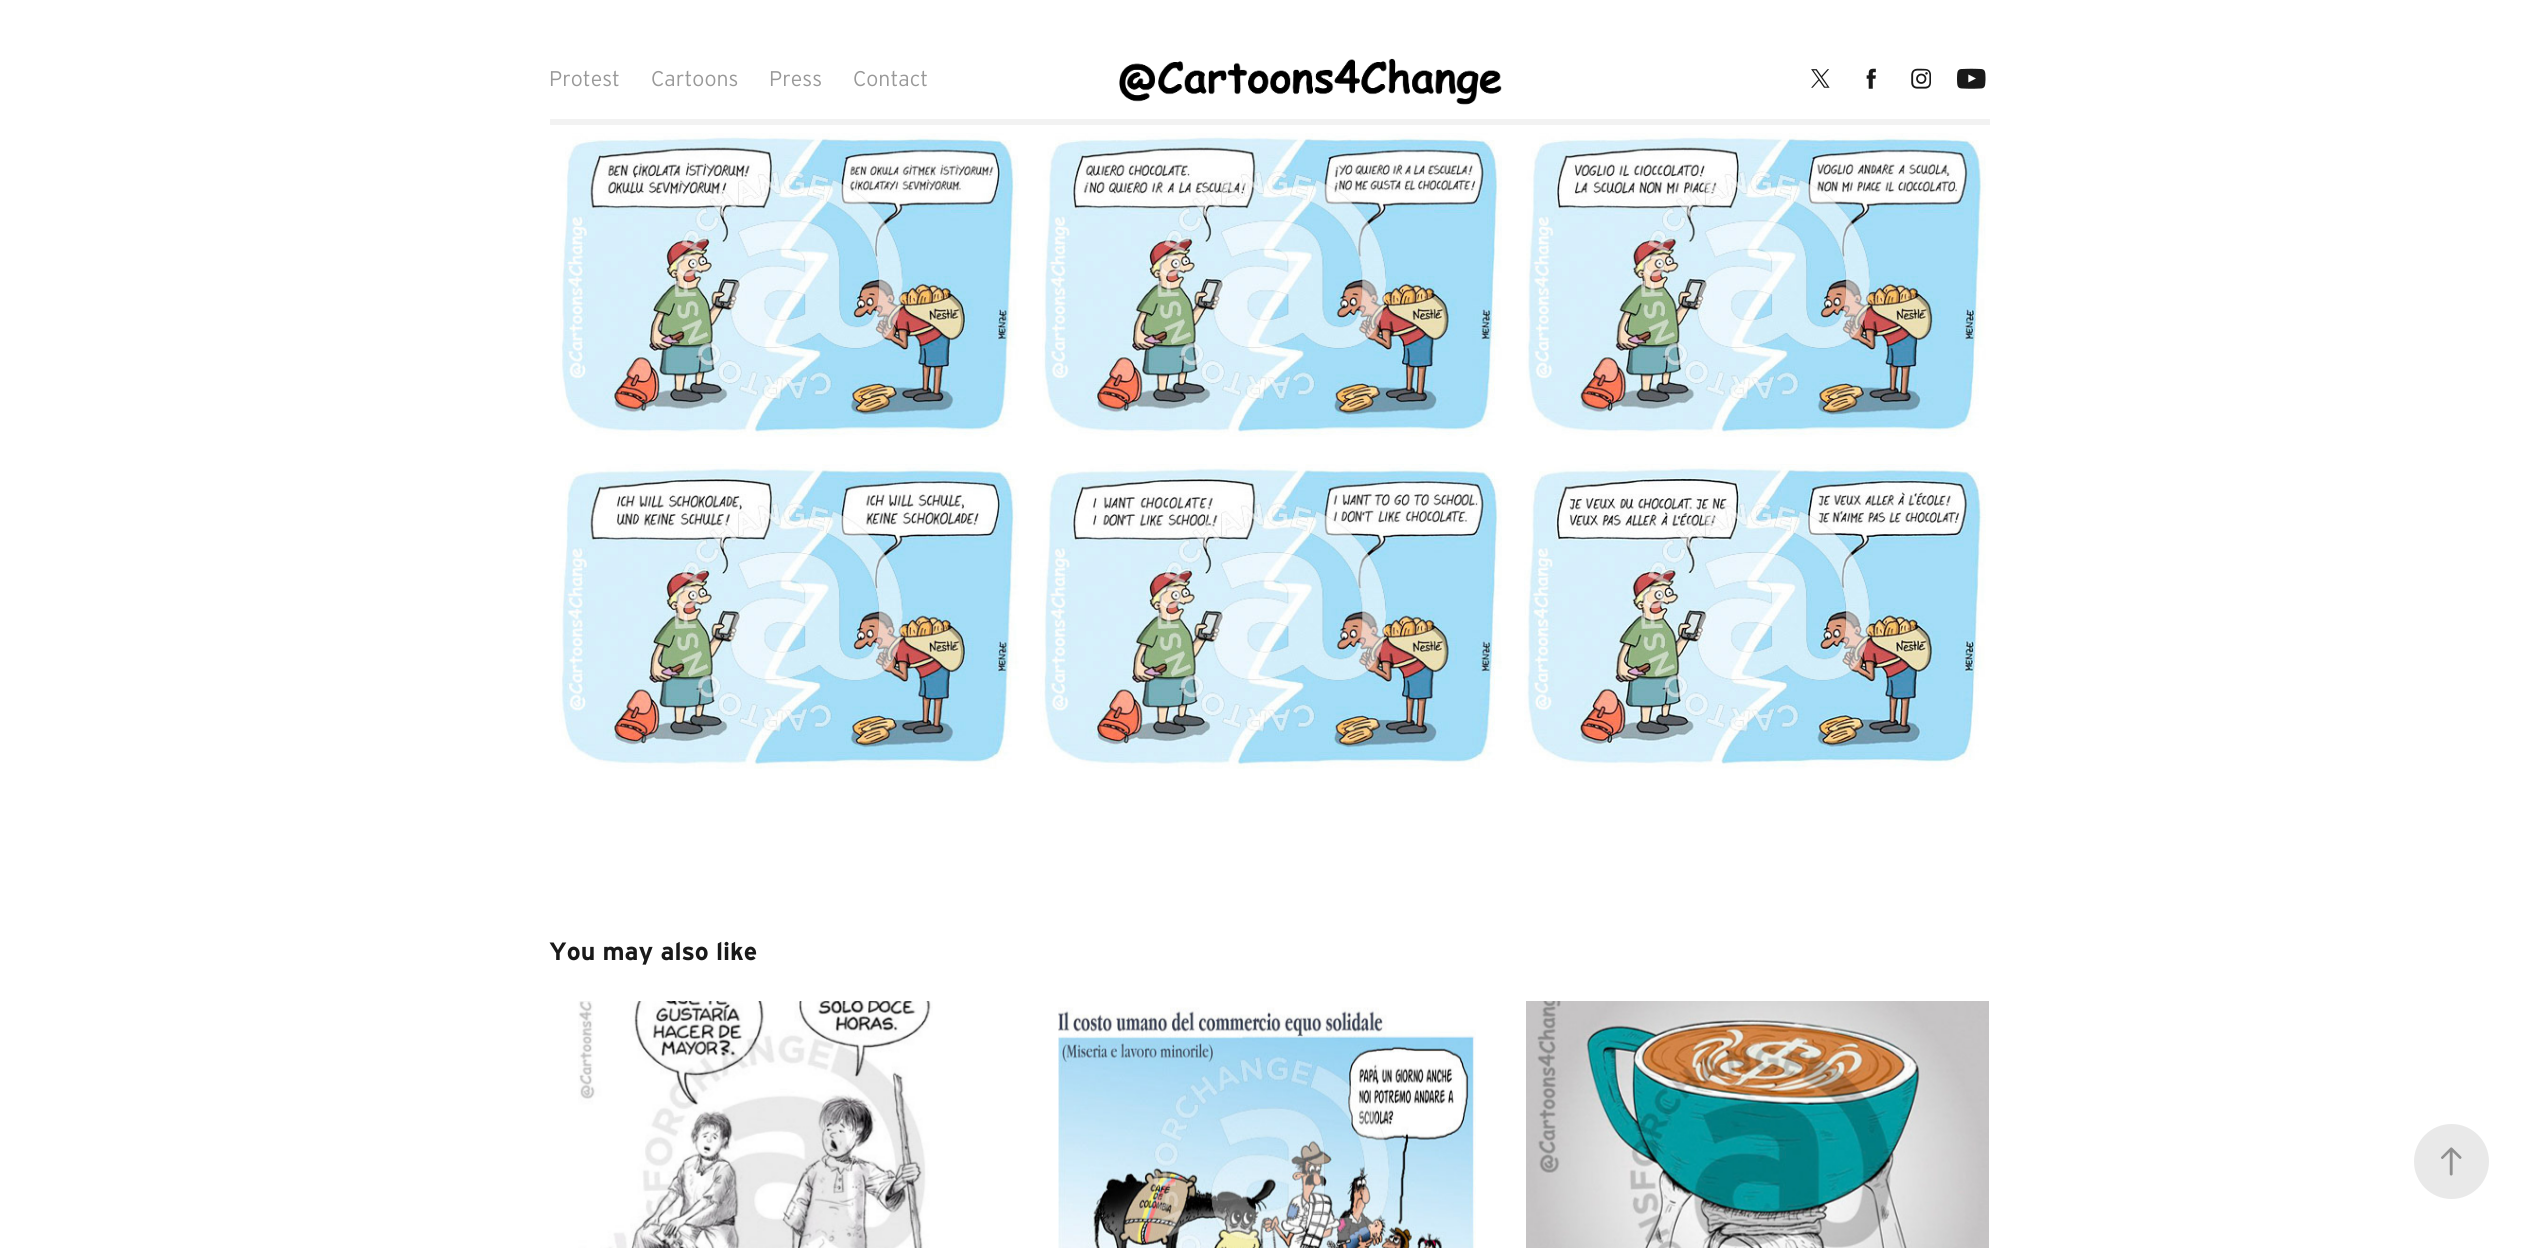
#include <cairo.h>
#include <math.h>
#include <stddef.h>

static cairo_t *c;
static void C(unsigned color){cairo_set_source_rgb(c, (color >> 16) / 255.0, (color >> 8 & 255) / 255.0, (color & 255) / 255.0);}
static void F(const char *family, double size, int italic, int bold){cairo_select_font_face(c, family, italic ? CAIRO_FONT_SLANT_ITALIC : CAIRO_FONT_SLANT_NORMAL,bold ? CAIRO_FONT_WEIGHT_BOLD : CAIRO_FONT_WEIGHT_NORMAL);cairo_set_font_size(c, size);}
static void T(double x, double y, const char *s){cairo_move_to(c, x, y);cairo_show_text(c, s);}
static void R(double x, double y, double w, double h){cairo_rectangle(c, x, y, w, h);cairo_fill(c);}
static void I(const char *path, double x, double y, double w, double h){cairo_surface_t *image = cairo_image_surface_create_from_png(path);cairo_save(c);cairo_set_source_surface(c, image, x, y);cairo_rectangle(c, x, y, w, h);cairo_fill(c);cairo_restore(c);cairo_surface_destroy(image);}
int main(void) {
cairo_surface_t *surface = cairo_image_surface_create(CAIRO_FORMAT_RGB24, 2538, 1248);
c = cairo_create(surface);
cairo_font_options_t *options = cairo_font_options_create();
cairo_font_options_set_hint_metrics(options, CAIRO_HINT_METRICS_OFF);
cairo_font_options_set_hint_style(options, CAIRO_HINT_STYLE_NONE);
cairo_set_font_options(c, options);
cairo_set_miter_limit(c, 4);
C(0xffffff);
cairo_paint(c);
C(0xf2f2f2);
R(550,119,1440,6);
F("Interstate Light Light",21.25,0,0);
C(0x999999);
T(549,86,"Protest");
T(651,86,"Cartoons");
T(769,86,"Press");
T(853,86,"Contact");
I("1.png",1119,58,383,47);
I("2.png",1811,69,19,19);
I("3.png",1866,68,10,21);
I("4.png",1911,68,20,21);
I("5.png",1957,68,29,21);
I("6.png",560,133,459,304);
I("7.png",1042,133,460,304);
I("8.png",1526,133,460,304);
I("9.png",559,464,460,305);
I("10.png",1040,464,462,305);
I("11.png",1524,464,462,305);
F("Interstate",25,0,1);
C(0x191919);
T(549,960,"You may also like");
I("12.png",578,1001,355,247);
I("13.png",1058,1007,418,241);
I("14.png",1526,1001,463,247);
C(0xe9e9e9);
cairo_arc(c,2451.5,1161.5,37.5,0,2 * M_PI);
cairo_fill(c);
I("15.png",2441,1147,21,29);
cairo_surface_write_to_png(surface, "o.png");
cairo_font_options_destroy(options);
cairo_destroy(c);
cairo_surface_destroy(surface);
return 0;
}
